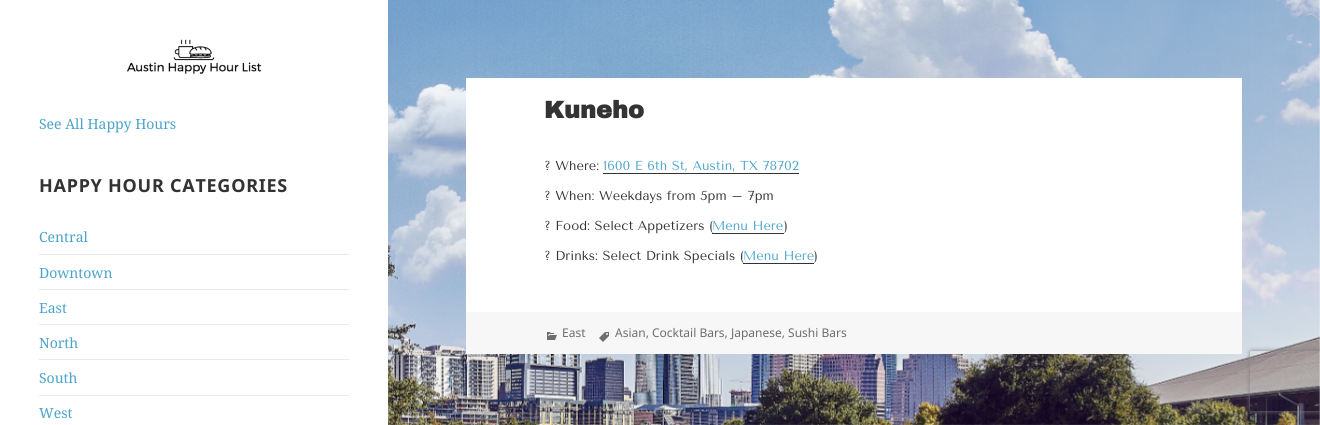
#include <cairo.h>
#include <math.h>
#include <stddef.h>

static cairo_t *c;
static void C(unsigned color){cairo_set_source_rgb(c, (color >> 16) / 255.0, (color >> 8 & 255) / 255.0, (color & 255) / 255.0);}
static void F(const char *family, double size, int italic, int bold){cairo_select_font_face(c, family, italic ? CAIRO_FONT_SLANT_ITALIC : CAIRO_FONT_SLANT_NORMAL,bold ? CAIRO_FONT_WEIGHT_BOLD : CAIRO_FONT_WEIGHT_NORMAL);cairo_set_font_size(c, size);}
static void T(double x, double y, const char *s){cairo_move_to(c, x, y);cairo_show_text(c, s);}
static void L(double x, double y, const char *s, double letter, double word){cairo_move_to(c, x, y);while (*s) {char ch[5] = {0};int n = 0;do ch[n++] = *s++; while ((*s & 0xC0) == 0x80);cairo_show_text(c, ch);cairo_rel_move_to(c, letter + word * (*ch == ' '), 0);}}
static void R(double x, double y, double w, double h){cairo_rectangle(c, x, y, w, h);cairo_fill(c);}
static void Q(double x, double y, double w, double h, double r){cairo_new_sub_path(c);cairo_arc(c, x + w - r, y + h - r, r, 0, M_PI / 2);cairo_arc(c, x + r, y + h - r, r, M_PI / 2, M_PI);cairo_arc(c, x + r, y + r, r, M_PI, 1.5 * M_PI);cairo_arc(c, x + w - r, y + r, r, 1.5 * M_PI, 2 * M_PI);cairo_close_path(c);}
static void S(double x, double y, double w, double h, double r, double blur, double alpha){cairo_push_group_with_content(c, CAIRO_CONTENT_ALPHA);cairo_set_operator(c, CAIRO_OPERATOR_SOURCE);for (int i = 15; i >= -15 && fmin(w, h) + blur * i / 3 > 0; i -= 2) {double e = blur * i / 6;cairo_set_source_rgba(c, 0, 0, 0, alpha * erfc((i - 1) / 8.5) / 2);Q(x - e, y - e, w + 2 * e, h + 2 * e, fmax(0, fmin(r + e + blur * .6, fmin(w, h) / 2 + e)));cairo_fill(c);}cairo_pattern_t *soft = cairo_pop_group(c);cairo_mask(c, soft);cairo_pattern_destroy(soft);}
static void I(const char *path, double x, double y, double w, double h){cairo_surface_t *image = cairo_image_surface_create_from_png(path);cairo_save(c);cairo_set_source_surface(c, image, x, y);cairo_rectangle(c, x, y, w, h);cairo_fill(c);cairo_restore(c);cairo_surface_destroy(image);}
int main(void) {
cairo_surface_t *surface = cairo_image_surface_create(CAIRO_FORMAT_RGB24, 1320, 425);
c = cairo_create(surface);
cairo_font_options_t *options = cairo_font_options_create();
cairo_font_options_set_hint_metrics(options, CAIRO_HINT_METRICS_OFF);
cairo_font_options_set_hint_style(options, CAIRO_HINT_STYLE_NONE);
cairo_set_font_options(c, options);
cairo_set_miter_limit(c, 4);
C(0xffffff);
cairo_paint(c);
I("1.png",388,0,932,425);
I("2.png",127,39,135,35);
F("Noto Serif",14,0,0);
C(0x4ba3cb);
T(39,129,"See All Happy Hours");
F("Noto Sans",18,0,1);
C(0x333333);
L(39,192,"HAPPY HOUR CATEGORIES",.75,0);
F("Noto Serif",14,0,0);
C(0x4ba3cb);
T(39,242,"Central");
C(0xebebeb);
R(39,254,310,1);
C(0x4ba3cb);
T(39,278,"Downtown");
C(0xebebeb);
R(39,289,310,1);
C(0x4ba3cb);
T(39,313,"East");
C(0xebebeb);
R(39,324,310,1);
C(0x4ba3cb);
T(39,348,"North");
C(0xebebeb);
R(39,359,310,1);
C(0x4ba3cb);
T(39,383,"South");
C(0xebebeb);
R(39,395,310,1);
C(0x4ba3cb);
T(39,418,"West");
C(0xffffff);
R(466,78,776,234);
F("Archivo Black",24,0,1);
C(0x333333);
T(544,118,"Kuneho");
F("Tenor Sans",13,0,0);
T(544,170,"? Where:");
C(0x4ba3cb);
T(603,170,"1600 E 6th St, Austin, TX 78702");
C(0x333333);
R(603,173,196,1);
T(544,200,"? When: Weekdays from 5pm – 7pm");
T(544,230,"? Food: Select Appetizers (");
C(0x4ba3cb);
T(712,230,"Menu Here");
C(0x333333);
R(712,233,72,1);
T(784,230,")");
T(544,260,"? Drinks: Select Drink Specials (");
C(0x4ba3cb);
T(743,260,"Menu Here");
C(0x333333);
R(743,263,71,1);
T(814,260,")");
C(0xf7f7f7);
R(466,312,776,42);
I("3.png",547,332,10,8);
F("Noto Sans",12,0,0);
C(0x6e6e6e);
T(562,337,"East");
I("4.png",599,332,10,10);
T(615,337,"Asian, Cocktail Bars, Japanese, Sushi Bars");
cairo_save(c);
cairo_set_fill_rule(c,CAIRO_FILL_RULE_EVEN_ODD);
cairo_new_path(c);
cairo_move_to(c,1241,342);
cairo_line_to(c,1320,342);
cairo_line_to(c,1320,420);
cairo_line_to(c,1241,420);
cairo_close_path(c);
cairo_move_to(c,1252,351);
cairo_line_to(c,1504,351);
cairo_curve_to(c,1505,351,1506,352,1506,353);
cairo_line_to(c,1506,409);
cairo_curve_to(c,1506,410,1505,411,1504,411);
cairo_line_to(c,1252,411);
cairo_curve_to(c,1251,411,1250,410,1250,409);
cairo_line_to(c,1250,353);
cairo_curve_to(c,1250,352,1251,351,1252,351);
cairo_close_path(c);
cairo_clip(c);
C(0x808080);
S(1250,351,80,60,2,2.5,1);
cairo_restore(c);
cairo_surface_write_to_png(surface, "o.png");
cairo_font_options_destroy(options);
cairo_destroy(c);
cairo_surface_destroy(surface);
return 0;
}
